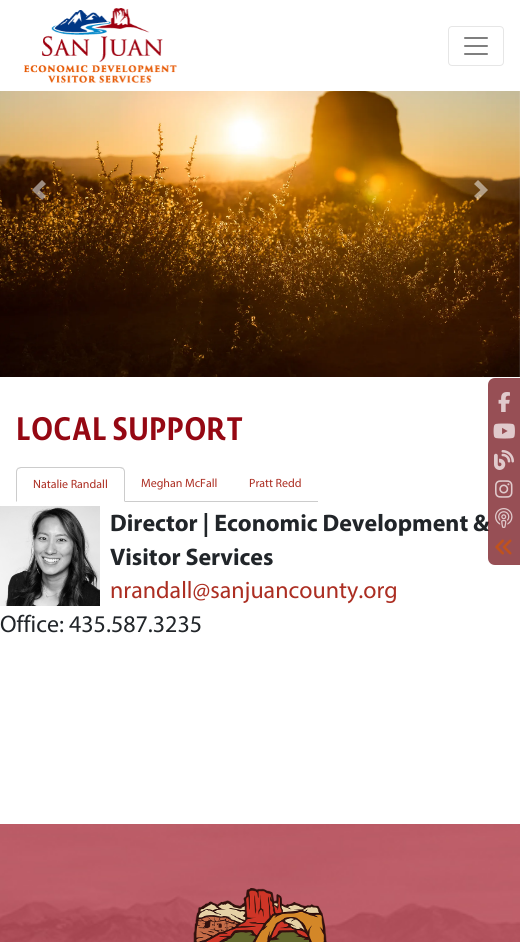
import math
import cairo



def rounded_rect(context, x, y, w, h, r):
    context.new_sub_path()
    for i, (u, v) in enumerate([(x + w - r, y + h - r), (x + r, y + h - r), (x + r, y + r), (x + w - r, y + r)]):
        context.arc(u, v, r, i * math.pi / 2, (i + 1) * math.pi / 2)
    context.close_path()


def draw_image(context, path, x, y, w, h):
    context.save()
    context.set_source_surface(cairo.ImageSurface.create_from_png(path), x, y)
    context.rectangle(x, y, w, h)
    context.fill()
    context.restore()


def draw(context):
    context.set_source_rgb(1, 1, 1)
    context.paint()
    draw_image(context, "images/1.png", 24, 8, 153, 75)
    rounded_rect(context, 448.5, 26.5, 55, 39, 3.5)
    context.set_source_rgb(230 / 255, 230 / 255, 230 / 255)
    context.set_line_width(1)
    context.stroke()
    draw_image(context, "images/2.png", 464, 37, 24, 18)
    draw_image(context, "images/3.png", 0, 91, 520, 286)
    context.set_source_rgba(1, 1, 1, 0.5)
    context.new_path()
    context.move_to(42, 180)
    context.line_to(32, 190)
    context.line_to(42, 200)
    context.line_to(46, 196)
    context.line_to(39.5, 190)
    context.line_to(46, 184)
    context.close_path()
    context.fill()
    context.new_path()
    context.move_to(478, 180)
    context.line_to(474, 184)
    context.line_to(480.5, 190)
    context.line_to(474, 196)
    context.line_to(478, 200)
    context.line_to(488, 190)
    context.close_path()
    context.fill()
    context.set_source_rgb(204 / 255, 204 / 255, 204 / 255)
    context.new_path()
    context.move_to(21, 467)
    context.curve_to(20, 467, 18, 468, 17, 468)
    context.line_to(18, 469)
    context.line_to(21, 468)
    context.line_to(120, 468)
    context.line_to(123, 469)
    context.line_to(124, 468)
    context.curve_to(123, 468, 122, 467, 120, 467)
    context.close_path()
    context.fill()
    context.new_path()
    context.move_to(125, 502)
    context.line_to(125, 472)
    context.curve_to(125, 470.5, 124.5, 469, 123.5, 468.5)
    context.line_to(123, 469)
    context.curve_to(123.5, 470, 124, 471, 124, 472)
    context.line_to(124, 501)
    context.close_path()
    context.fill()
    context.new_path()
    context.move_to(16, 502)
    context.line_to(17, 501)
    context.line_to(17, 472)
    context.curve_to(17, 471, 17.5, 470, 18, 469)
    context.line_to(17.5, 468.5)
    context.curve_to(16.5, 469, 16, 470.5, 16, 472)
    context.close_path()
    context.fill()
    context.rectangle(125, 501, 193, 1)
    context.fill()
    draw_image(context, "images/10.png", 0, 506, 100, 100)
    draw_image(context, "images/11.png", 0, 824, 520, 118)
    draw_image(context, "images/12.png", 193, 888, 134, 54)
    context.select_font_face("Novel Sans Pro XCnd", cairo.FontSlant.NORMAL, cairo.FontWeight.BOLD)
    context.set_font_size(32)
    context.set_source_rgb(149 / 255, 8 / 255, 19 / 255)
    context.move_to(16, 440)
    context.show_text("LOCAL SUPPORT")
    context.select_font_face("Myriad")
    context.set_font_size(12)
    context.set_source_rgb(172 / 255, 46 / 255, 34 / 255)
    context.move_to(33, 488)
    context.show_text("Natalie Randall")
    context.move_to(141, 487)
    context.show_text("Meghan McFall")
    context.move_to(249, 487)
    context.show_text("Pratt Redd")
    context.select_font_face("Myriad", cairo.FontSlant.NORMAL, cairo.FontWeight.BOLD)
    context.set_font_size(24)
    context.set_source_rgb(33 / 255, 37 / 255, 41 / 255)
    context.move_to(110, 531)
    context.show_text("Director | Economic Development &")
    context.set_source_rgba(107 / 255, 5 / 255, 13 / 255, 0.7)
    context.new_path()
    context.move_to(495, 378)
    context.line_to(520, 378)
    context.line_to(520, 565)
    context.line_to(495, 565)
    context.curve_to(491, 565, 488, 562, 488, 558)
    context.line_to(488, 385)
    context.curve_to(488, 381, 491, 378, 495, 378)
    context.close_path()
    context.fill()
    draw_image(context, "images/9.png", 495, 539, 17, 16)
    draw_image(context, "images/8.png", 495, 508, 18, 20)
    draw_image(context, "images/7.png", 495, 480, 18, 18)
    draw_image(context, "images/6.png", 494, 450, 20, 20)
    draw_image(context, "images/5.png", 493, 423, 22, 16)
    draw_image(context, "images/4.png", 498, 392, 12, 20)
    context.set_source_rgb(33 / 255, 37 / 255, 41 / 255)
    context.move_to(110, 565)
    context.show_text("Visitor Services")
    context.select_font_face("Myriad")
    context.set_source_rgb(172 / 255, 46 / 255, 34 / 255)
    context.move_to(110, 598)
    context.show_text("nrandall@sanjuancounty.org")
    context.set_source_rgb(33 / 255, 37 / 255, 41 / 255)
    context.move_to(0, 632)
    context.show_text("Office: 435.587.3235")


surface = cairo.ImageSurface(cairo.Format.RGB24, 520, 942)
context = cairo.Context(surface)
options = cairo.FontOptions()
options.set_hint_metrics(cairo.HintMetrics.OFF)
options.set_hint_style(cairo.HintStyle.NONE)
context.set_font_options(options)
context.set_miter_limit(4)
draw(context)
surface.write_to_png("out.png")
